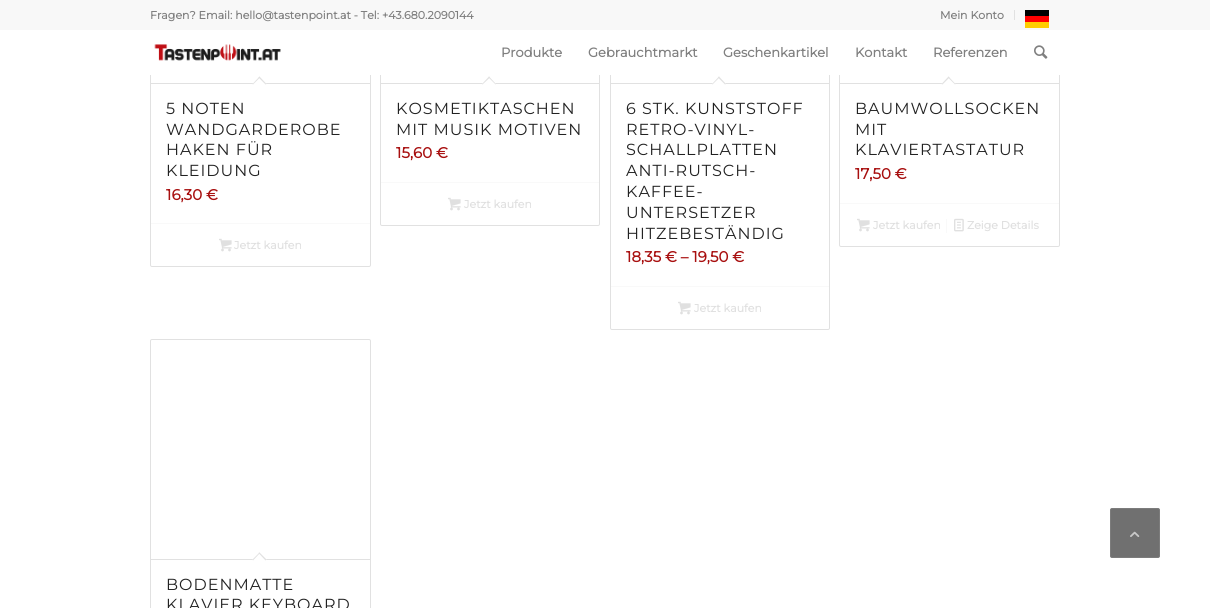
import math
import cairo



def draw_spaced(context, x, y, s, letter, word):
    context.move_to(x, y)
    for ch in s:
        context.show_text(ch)
        context.rel_move_to(letter + word * (ch == ' '), 0)


def rounded_rect(context, x, y, w, h, r):
    context.new_sub_path()
    for i, (u, v) in enumerate([(x + w - r, y + h - r), (x + r, y + h - r), (x + r, y + r), (x + w - r, y + r)]):
        context.arc(u, v, r, i * math.pi / 2, (i + 1) * math.pi / 2)
    context.close_path()


def draw_image(context, path, x, y, w, h):
    context.save()
    context.set_source_surface(cairo.ImageSurface.create_from_png(path), x, y)
    context.rectangle(x, y, w, h)
    context.fill()
    context.restore()


def draw(context):
    context.set_source_rgb(1, 1, 1)
    context.paint()
    rounded_rect(context, 150.5, -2.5, 220, 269, 1.5)
    context.set_source_rgb(225 / 255, 225 / 255, 225 / 255)
    context.set_line_width(1)
    context.stroke()
    rounded_rect(context, 380.5, -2.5, 219, 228, 1.5)
    context.stroke()
    rounded_rect(context, 610.5, -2.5, 219, 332, 1.5)
    context.stroke()
    rounded_rect(context, 839.5, -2.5, 220, 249, 1.5)
    context.stroke()
    context.set_source_rgb(248 / 255, 248 / 255, 248 / 255)
    context.rectangle(0, 0, 1210, 30)
    context.fill()
    context.set_source_rgb(225 / 255, 225 / 255, 225 / 255)
    context.rectangle(1014, 10, 1, 10)
    context.fill()
    context.set_source_rgb(1, 204 / 255, 0)
    context.rectangle(1025, 22, 24, 6)
    context.fill()
    context.set_source_rgb(0, 0, 0)
    context.rectangle(1025, 10, 24, 6)
    context.fill()
    context.set_source_rgb(1, 0, 0)
    context.rectangle(1025, 16, 24, 6)
    context.fill()
    context.set_source_rgb(1, 1, 1)
    context.rectangle(150, 30, 910, 45)
    context.fill()
    draw_image(context, "images/1.png", 154, 44, 127, 17)
    draw_image(context, "images/2.png", 1034, 45, 14, 14)
    context.set_source_rgb(225 / 255, 225 / 255, 225 / 255)
    context.rectangle(151, 83, 219, 1)
    context.fill()
    context.set_source_rgb(1, 1, 1)
    context.new_path()
    context.move_to(259.5, 76.5)
    context.line_to(266.5, 84)
    context.line_to(259.5, 91)
    context.line_to(252.5, 84)
    context.close_path()
    context.fill()
    context.set_source_rgb(225 / 255, 225 / 255, 225 / 255)
    context.new_path()
    context.move_to(259.5, 76.5)
    context.line_to(266.5, 84)
    context.line_to(265.5, 84.5)
    context.line_to(258.5, 77.5)
    context.close_path()
    context.fill()
    context.new_path()
    context.move_to(259.5, 76.5)
    context.line_to(260, 77.5)
    context.line_to(253, 84.5)
    context.line_to(252.5, 84)
    context.close_path()
    context.fill()
    context.set_source_rgb(249 / 255, 249 / 255, 249 / 255)
    context.rectangle(151, 223, 219, 1)
    context.fill()
    draw_image(context, "images/3.png", 219, 238, 13, 14)
    context.set_source_rgb(225 / 255, 225 / 255, 225 / 255)
    context.rectangle(381, 83, 218, 1)
    context.fill()
    context.set_source_rgb(1, 1, 1)
    context.new_path()
    context.move_to(489, 76.5)
    context.line_to(496, 84)
    context.line_to(489, 91)
    context.line_to(482, 84)
    context.close_path()
    context.fill()
    context.set_source_rgb(225 / 255, 225 / 255, 225 / 255)
    context.new_path()
    context.move_to(489, 76.5)
    context.line_to(496, 84)
    context.line_to(495.5, 84.5)
    context.line_to(488.5, 77.5)
    context.close_path()
    context.fill()
    context.new_path()
    context.move_to(489, 76.5)
    context.line_to(490, 77.5)
    context.line_to(482.5, 84.5)
    context.line_to(482, 84)
    context.close_path()
    context.fill()
    context.set_source_rgb(249 / 255, 249 / 255, 249 / 255)
    context.rectangle(381, 182, 218, 1)
    context.fill()
    draw_image(context, "images/3.png", 448, 197, 13, 14)
    context.set_source_rgb(225 / 255, 225 / 255, 225 / 255)
    context.rectangle(611, 83, 218, 1)
    context.fill()
    context.set_source_rgb(1, 1, 1)
    context.new_path()
    context.move_to(719, 76.5)
    context.line_to(726, 84)
    context.line_to(719, 91)
    context.line_to(712, 84)
    context.close_path()
    context.fill()
    context.set_source_rgb(225 / 255, 225 / 255, 225 / 255)
    context.new_path()
    context.move_to(719, 76.5)
    context.line_to(726, 84)
    context.line_to(725, 84.5)
    context.line_to(718, 77.5)
    context.close_path()
    context.fill()
    context.new_path()
    context.move_to(719, 76.5)
    context.line_to(719.5, 77.5)
    context.line_to(712.5, 84.5)
    context.line_to(712, 84)
    context.close_path()
    context.fill()
    context.set_source_rgb(249 / 255, 249 / 255, 249 / 255)
    context.rectangle(611, 286, 218, 1)
    context.fill()
    draw_image(context, "images/3.png", 678, 301, 13, 14)
    context.set_source_rgb(225 / 255, 225 / 255, 225 / 255)
    context.rectangle(840, 83, 219, 1)
    context.fill()
    context.set_source_rgb(1, 1, 1)
    context.new_path()
    context.move_to(948.5, 76.5)
    context.line_to(955.5, 84)
    context.line_to(948.5, 91)
    context.line_to(941.5, 84)
    context.close_path()
    context.fill()
    context.set_source_rgb(225 / 255, 225 / 255, 225 / 255)
    context.new_path()
    context.move_to(948.5, 76.5)
    context.line_to(955.5, 84)
    context.line_to(955, 84.5)
    context.line_to(948, 77.5)
    context.close_path()
    context.fill()
    context.new_path()
    context.move_to(948.5, 76.5)
    context.line_to(949.5, 77.5)
    context.line_to(942.5, 84.5)
    context.line_to(941.5, 84)
    context.close_path()
    context.fill()
    context.set_source_rgb(249 / 255, 249 / 255, 249 / 255)
    context.rectangle(840, 203, 219, 1)
    context.fill()
    draw_image(context, "images/3.png", 857, 218, 13, 14)
    context.rectangle(946, 219, 1, 14)
    context.fill()
    draw_image(context, "images/4.png", 954, 218, 10, 14)
    rounded_rect(context, 150.5, 339.5, 220, 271, 1.5)
    context.set_source_rgb(225 / 255, 225 / 255, 225 / 255)
    context.stroke()
    context.rectangle(151, 559, 219, 1)
    context.fill()
    context.set_source_rgb(1, 1, 1)
    context.new_path()
    context.move_to(259.5, 552.5)
    context.line_to(266.5, 559.5)
    context.line_to(259.5, 566.5)
    context.line_to(252.5, 559.5)
    context.close_path()
    context.fill()
    context.set_source_rgb(225 / 255, 225 / 255, 225 / 255)
    context.new_path()
    context.move_to(259.5, 552.5)
    context.line_to(266.5, 559.5)
    context.line_to(265.5, 560.5)
    context.line_to(258.5, 553)
    context.close_path()
    context.fill()
    context.new_path()
    context.move_to(259.5, 552.5)
    context.line_to(260, 553)
    context.line_to(253, 560.5)
    context.line_to(252.5, 559.5)
    context.close_path()
    context.fill()
    context.set_source_rgb(112 / 255, 112 / 255, 112 / 255)
    rounded_rect(context, 1110.5, 508.5, 49, 49, 1.5)
    context.fill_preserve()
    context.set_source_rgb(124 / 255, 124 / 255, 124 / 255)
    context.stroke()
    draw_image(context, "images/5.png", 1130, 531, 10, 6)
    context.select_font_face("Montserrat", cairo.FontSlant.NORMAL, cairo.FontWeight.BOLD)
    context.set_font_size(11)
    context.set_source_rgb(128 / 255, 128 / 255, 128 / 255)
    context.move_to(150, 19)
    context.show_text("Fragen? Email: hello@tastenpoint.at - Tel: +43.680.2090144")
    context.move_to(940, 19)
    context.show_text("Mein Konto")
    context.set_font_size(13)
    context.move_to(501, 57)
    context.show_text("Produkte")
    context.move_to(588, 57)
    context.show_text("Gebrauchtmarkt")
    context.move_to(723, 57)
    context.show_text("Geschenkartikel")
    context.move_to(855, 57)
    context.show_text("Kontakt")
    context.move_to(933, 57)
    context.show_text("Referenzen")
    context.select_font_face("Montserrat Thin")
    context.set_font_size(16)
    context.set_source_rgb(34 / 255, 34 / 255, 34 / 255)
    draw_spaced(context, 166, 114, "5 NOTEN", 1, 0)
    draw_spaced(context, 166, 135, "WANDGARDEROBE", 1, 0)
    draw_spaced(context, 166, 155, "HAKEN FÜR", 1, 0)
    draw_spaced(context, 166, 176, "KLEIDUNG", 1, 0)
    context.select_font_face("Montserrat", cairo.FontSlant.NORMAL, cairo.FontWeight.BOLD)
    context.set_font_size(15)
    context.set_source_rgb(168 / 255, 16 / 255, 16 / 255)
    context.move_to(166, 200)
    context.show_text("16,30 €")
    context.set_font_size(11)
    context.set_source_rgb(224 / 255, 224 / 255, 224 / 255)
    context.move_to(234, 249)
    context.show_text("Jetzt kaufen")
    context.select_font_face("Montserrat Thin")
    context.set_font_size(16)
    context.set_source_rgb(34 / 255, 34 / 255, 34 / 255)
    draw_spaced(context, 396, 114, "KOSMETIKTASCHEN", 1, 0)
    draw_spaced(context, 396, 135, "MIT MUSIK MOTIVEN", 1, 0)
    context.select_font_face("Montserrat", cairo.FontSlant.NORMAL, cairo.FontWeight.BOLD)
    context.set_font_size(15)
    context.set_source_rgb(168 / 255, 16 / 255, 16 / 255)
    context.move_to(396, 158)
    context.show_text("15,60 €")
    context.set_font_size(11)
    context.set_source_rgb(224 / 255, 224 / 255, 224 / 255)
    context.move_to(464, 208)
    context.show_text("Jetzt kaufen")
    context.select_font_face("Montserrat Thin")
    context.set_font_size(16)
    context.set_source_rgb(34 / 255, 34 / 255, 34 / 255)
    draw_spaced(context, 626, 114, "6 STK. KUNSTSTOFF", 1, 0)
    draw_spaced(context, 626, 135, "RETRO-VINYL-", 1, 0)
    draw_spaced(context, 626, 155, "SCHALLPLATTEN", 1, 0)
    draw_spaced(context, 626, 176, "ANTI-RUTSCH-", 1, 0)
    draw_spaced(context, 626, 197, "KAFFEE-", 1, 0)
    draw_spaced(context, 626, 218, "UNTERSETZER", 1, 0)
    draw_spaced(context, 626, 239, "HITZEBESTÄNDIG", 1, 0)
    context.select_font_face("Montserrat", cairo.FontSlant.NORMAL, cairo.FontWeight.BOLD)
    context.set_font_size(15)
    context.set_source_rgb(168 / 255, 16 / 255, 16 / 255)
    context.move_to(626, 262)
    context.show_text("18,35 € – 19,50 €")
    context.set_font_size(11)
    context.set_source_rgb(224 / 255, 224 / 255, 224 / 255)
    context.move_to(694, 312)
    context.show_text("Jetzt kaufen")
    context.select_font_face("Montserrat Thin")
    context.set_font_size(16)
    context.set_source_rgb(34 / 255, 34 / 255, 34 / 255)
    draw_spaced(context, 855, 114, "BAUMWOLLSOCKEN", 1, 0)
    draw_spaced(context, 855, 135, "MIT", 1, 0)
    draw_spaced(context, 855, 155, "KLAVIERTASTATUR", 1, 0)
    context.select_font_face("Montserrat", cairo.FontSlant.NORMAL, cairo.FontWeight.BOLD)
    context.set_font_size(15)
    context.set_source_rgb(168 / 255, 16 / 255, 16 / 255)
    context.move_to(855, 179)
    context.show_text("17,50 €")
    context.set_font_size(11)
    context.set_source_rgb(224 / 255, 224 / 255, 224 / 255)
    context.move_to(873, 229)
    context.show_text("Jetzt kaufen")
    context.move_to(967, 229)
    context.show_text("Zeige Details")
    context.select_font_face("Montserrat Thin")
    context.set_font_size(16)
    context.set_source_rgb(34 / 255, 34 / 255, 34 / 255)
    draw_spaced(context, 166, 590, "BODENMATTE", 1, 0)
    draw_spaced(context, 166, 610, "KLAVIER KEYBOARD", 1, 0)


surface = cairo.ImageSurface(cairo.Format.RGB24, 1210, 608)
context = cairo.Context(surface)
options = cairo.FontOptions()
options.set_hint_metrics(cairo.HintMetrics.OFF)
options.set_hint_style(cairo.HintStyle.NONE)
context.set_font_options(options)
context.set_miter_limit(4)
draw(context)
surface.write_to_png("out.png")
